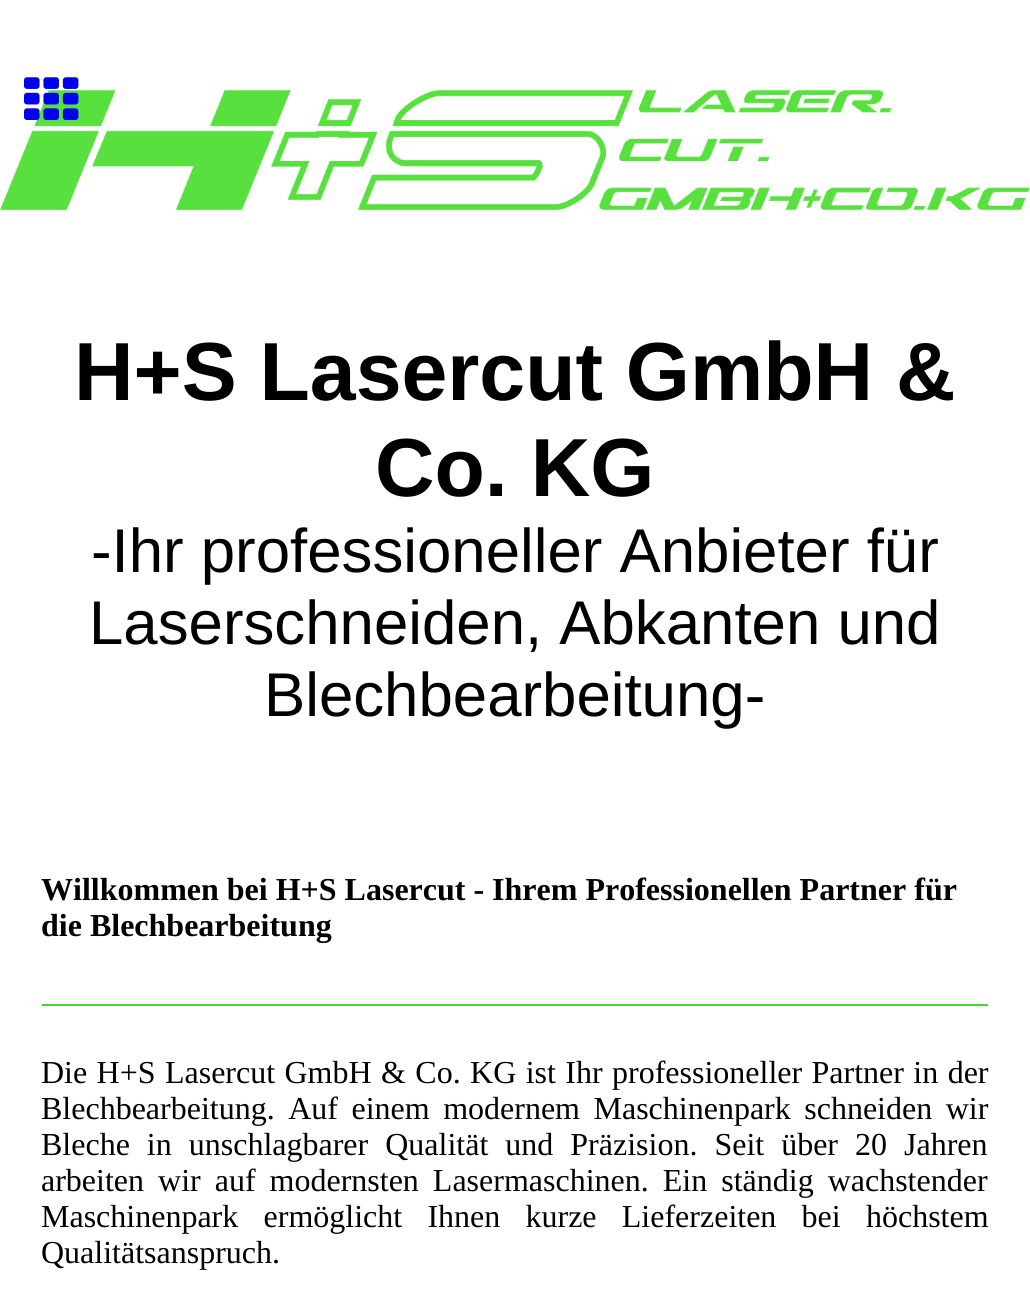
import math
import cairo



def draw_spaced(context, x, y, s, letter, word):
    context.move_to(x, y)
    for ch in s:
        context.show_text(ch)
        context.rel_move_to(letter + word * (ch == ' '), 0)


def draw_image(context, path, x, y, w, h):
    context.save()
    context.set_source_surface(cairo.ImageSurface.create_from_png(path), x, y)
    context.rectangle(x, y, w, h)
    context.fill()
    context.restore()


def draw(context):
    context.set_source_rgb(1, 1, 1)
    context.paint()
    draw_image(context, "images/2.png", 0, 90, 1030, 120)
    draw_image(context, "images/1.png", 24, 77, 55, 43)
    context.set_source_rgb(68 / 255, 214 / 255, 44 / 255)
    context.rectangle(42, 1004, 946, 2)
    context.fill()
    context.select_font_face("Liberation Sans", cairo.FontSlant.NORMAL, cairo.FontWeight.BOLD)
    context.set_font_size(82.4)
    context.set_source_rgb(0, 0, 0)
    context.move_to(74, 400)
    context.show_text("H+S Lasercut GmbH &")
    context.move_to(375, 496)
    context.show_text("Co. KG")
    context.select_font_face("Liberation Sans")
    context.set_font_size(61.75)
    context.move_to(91, 572)
    context.show_text("-Ihr professioneller Anbieter für")
    context.move_to(89, 644)
    context.show_text("Laserschneiden, Abkanten und")
    context.move_to(264, 716)
    context.show_text("Blechbearbeitung-")
    context.select_font_face("Liberation Serif", cairo.FontSlant.NORMAL, cairo.FontWeight.BOLD)
    context.set_font_size(32)
    context.move_to(41, 900)
    context.show_text("Willkommen bei H+S Lasercut - Ihrem Professionellen Partner für")
    context.move_to(41, 936)
    context.show_text("die Blechbearbeitung")
    context.select_font_face("Liberation Serif")
    draw_spaced(context, 41, 1083, "Die H+S Lasercut GmbH & Co. KG ist Ihr professioneller Partner in der", 0, 1.4)
    draw_spaced(context, 41, 1119, "Blechbearbeitung. Auf einem modernem Maschinenpark schneiden wir", 0, 5.5)
    draw_spaced(context, 41, 1155, "Bleche in unschlagbarer Qualität und Präzision. Seit über 20 Jahren", 0, 9)
    draw_spaced(context, 41, 1191, "arbeiten wir auf modernsten Lasermaschinen. Ein ständig wachstender", 0, 6)
    draw_spaced(context, 41, 1227, "Maschinenpark ermöglicht Ihnen kurze Lieferzeiten bei höchstem", 0, 17.25)
    context.move_to(41, 1263)
    context.show_text("Qualitätsanspruch.")


surface = cairo.ImageSurface(cairo.Format.RGB24, 1030, 1299)
context = cairo.Context(surface)
options = cairo.FontOptions()
options.set_hint_metrics(cairo.HintMetrics.OFF)
options.set_hint_style(cairo.HintStyle.NONE)
context.set_font_options(options)
context.set_miter_limit(4)
draw(context)
surface.write_to_png("out.png")
